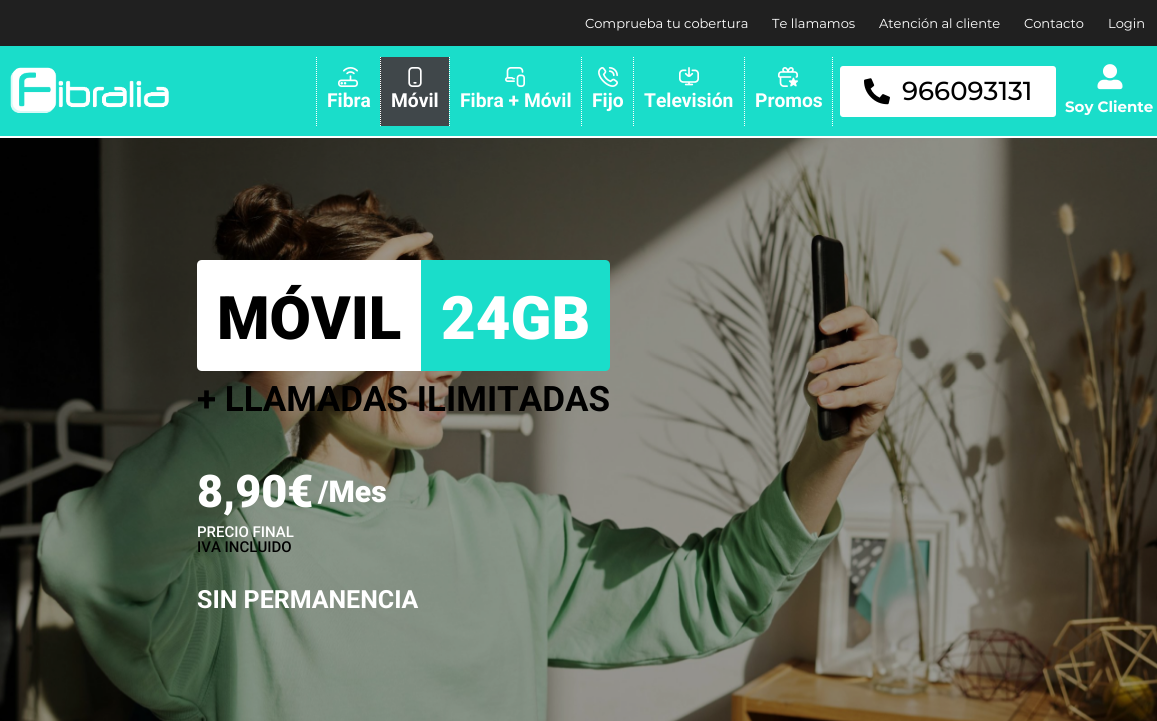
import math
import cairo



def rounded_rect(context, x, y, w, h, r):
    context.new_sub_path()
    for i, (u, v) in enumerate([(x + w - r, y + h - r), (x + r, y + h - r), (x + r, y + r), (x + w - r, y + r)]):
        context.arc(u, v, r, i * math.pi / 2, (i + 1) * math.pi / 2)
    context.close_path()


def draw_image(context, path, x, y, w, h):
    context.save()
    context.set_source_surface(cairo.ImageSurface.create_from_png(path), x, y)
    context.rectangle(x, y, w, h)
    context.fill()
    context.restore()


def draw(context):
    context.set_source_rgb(1, 1, 1)
    context.paint()
    context.set_source_rgb(32 / 255, 32 / 255, 32 / 255)
    context.rectangle(0, 0, 1157, 46)
    context.fill()
    context.set_source_rgb(26 / 255, 221 / 255, 202 / 255)
    context.rectangle(0, 46, 1157, 90)
    context.fill()
    draw_image(context, "images/1.png", 10, 67, 159, 46)
    context.new_path()
    context.move_to(832.5, 57)
    context.line_to(832.5, 126)
    context.set_source_rgb(1, 1, 1)
    context.set_line_width(1)
    context.set_dash([1, 1])
    context.stroke()
    context.new_path()
    context.move_to(316.5, 57)
    context.line_to(316.5, 126)
    context.stroke()
    draw_image(context, "images/2.png", 338, 67, 20, 20)
    context.set_source_rgb(64 / 255, 71 / 255, 74 / 255)
    context.rectangle(380, 57, 69, 69)
    context.fill()
    context.new_path()
    context.move_to(380.5, 57)
    context.line_to(380.5, 126)
    context.set_source_rgb(1, 1, 1)
    context.stroke()
    draw_image(context, "images/3.png", 408, 67, 14, 20)
    context.new_path()
    context.move_to(449.5, 57)
    context.line_to(449.5, 126)
    context.stroke()
    draw_image(context, "images/4.png", 505, 67, 20, 20)
    context.new_path()
    context.move_to(581.5, 57)
    context.line_to(581.5, 126)
    context.stroke()
    draw_image(context, "images/5.png", 598, 67, 20, 20)
    context.new_path()
    context.move_to(633.5, 57)
    context.line_to(633.5, 126)
    context.stroke()
    draw_image(context, "images/6.png", 679, 67, 20, 19)
    context.new_path()
    context.move_to(744.5, 57)
    context.line_to(744.5, 126)
    context.stroke()
    draw_image(context, "images/7.png", 778, 67, 20, 20)
    rounded_rect(context, 840, 66, 216, 51, 3)
    context.fill()
    draw_image(context, "images/8.png", 864, 78, 26, 27)
    draw_image(context, "images/9.png", 1097, 64, 26, 26)
    draw_image(context, "images/10.png", 0, 138, 1157, 583)
    context.new_path()
    context.move_to(202, 260)
    context.line_to(421, 260)
    context.line_to(421, 371)
    context.line_to(202, 371)
    context.curve_to(199, 371, 197, 369, 197, 366)
    context.line_to(197, 265)
    context.curve_to(197, 262, 199, 260, 202, 260)
    context.close_path()
    context.fill()
    context.set_source_rgb(26 / 255, 221 / 255, 202 / 255)
    context.new_path()
    context.move_to(421, 260)
    context.line_to(605, 260)
    context.curve_to(608, 260, 610, 262, 610, 265)
    context.line_to(610, 366)
    context.curve_to(610, 369, 608, 371, 605, 371)
    context.line_to(421, 371)
    context.close_path()
    context.fill()
    context.select_font_face("Montserrat")
    context.set_font_size(13)
    context.set_source_rgb(1, 1, 1)
    context.move_to(585, 28)
    context.show_text("Comprueba tu cobertura")
    context.move_to(772, 28)
    context.show_text("Te llamamos")
    context.move_to(879, 28)
    context.show_text("Atención al cliente")
    context.move_to(1024, 28)
    context.show_text("Contacto")
    context.move_to(1108, 28)
    context.show_text("Login")
    context.select_font_face("Roboto", cairo.FontSlant.NORMAL, cairo.FontWeight.BOLD)
    context.set_font_size(19.25)
    context.move_to(327, 107)
    context.show_text("Fibra")
    context.move_to(391, 107)
    context.show_text("Móvil")
    context.move_to(460, 107)
    context.show_text("Fibra + Móvil")
    context.move_to(592, 107)
    context.show_text("Fijo")
    context.move_to(644, 107)
    context.show_text("Televisión")
    context.move_to(755, 107)
    context.show_text("Promos")
    context.select_font_face("Montserrat Medium")
    context.set_font_size(26)
    context.set_source_rgb(0, 0, 0)
    context.move_to(902, 100)
    context.show_text("966093131")
    context.select_font_face("Montserrat", cairo.FontSlant.NORMAL, cairo.FontWeight.BOLD)
    context.set_font_size(15)
    context.set_source_rgb(1, 1, 1)
    context.move_to(1065, 112)
    context.show_text("Soy Cliente")
    context.select_font_face("Roboto Black")
    context.set_font_size(60)
    context.set_source_rgb(0, 0, 0)
    context.move_to(217, 339)
    context.show_text("MÓVIL")
    context.set_source_rgb(1, 1, 1)
    context.move_to(441, 339)
    context.show_text("24GB")
    context.select_font_face("Roboto", cairo.FontSlant.NORMAL, cairo.FontWeight.BOLD)
    context.set_font_size(35)
    context.set_source_rgb(0, 0, 0)
    context.move_to(197, 411)
    context.show_text("+ LLAMADAS ILIMITADAS")
    context.select_font_face("Roboto Black")
    context.set_font_size(45)
    context.set_source_rgb(1, 1, 1)
    context.move_to(197, 507)
    context.show_text("8,90€")
    context.set_font_size(30)
    context.move_to(318, 502)
    context.show_text("/Mes")
    context.select_font_face("Roboto Medium")
    context.set_font_size(15)
    context.move_to(197, 537)
    context.show_text("PRECIO FINAL")
    context.set_source_rgb(0, 0, 0)
    context.move_to(197, 552)
    context.show_text("IVA INCLUIDO")
    context.select_font_face("Roboto", cairo.FontSlant.NORMAL, cairo.FontWeight.BOLD)
    context.set_font_size(25)
    context.set_source_rgb(1, 1, 1)
    context.move_to(197, 608)
    context.show_text("SIN PERMANENCIA")


surface = cairo.ImageSurface(cairo.Format.RGB24, 1157, 721)
context = cairo.Context(surface)
options = cairo.FontOptions()
options.set_hint_metrics(cairo.HintMetrics.OFF)
options.set_hint_style(cairo.HintStyle.NONE)
context.set_font_options(options)
context.set_miter_limit(4)
draw(context)
surface.write_to_png("out.png")
